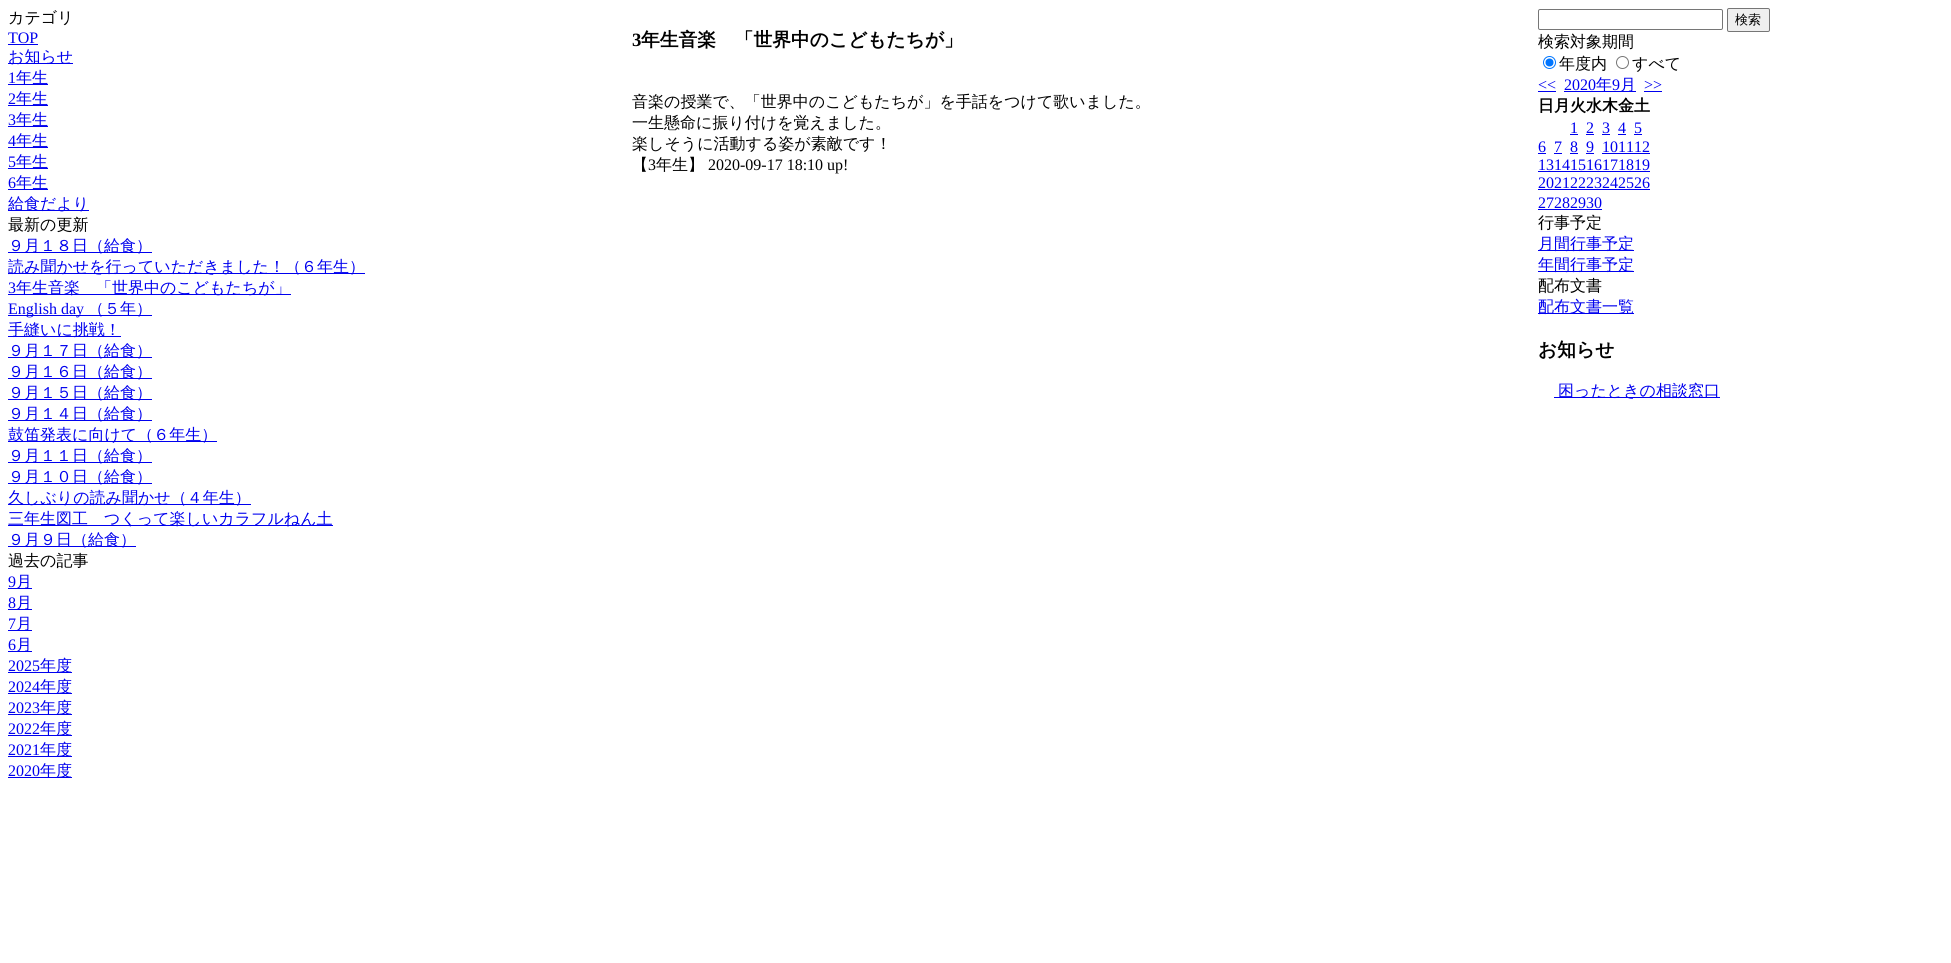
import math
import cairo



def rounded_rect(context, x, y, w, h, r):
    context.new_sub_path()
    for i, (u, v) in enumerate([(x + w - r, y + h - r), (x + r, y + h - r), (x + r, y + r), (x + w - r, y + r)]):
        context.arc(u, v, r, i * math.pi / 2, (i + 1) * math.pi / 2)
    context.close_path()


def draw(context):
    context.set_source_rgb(1, 1, 1)
    context.paint()
    context.set_source_rgb(0, 0, 238 / 255)
    context.rectangle(8, 44, 30, 1)
    context.fill()
    context.rectangle(8, 63, 65, 1)
    context.fill()
    context.rectangle(8, 84, 40, 1)
    context.fill()
    context.rectangle(8, 105, 40, 1)
    context.fill()
    context.rectangle(8, 126, 40, 1)
    context.fill()
    context.rectangle(8, 147, 40, 1)
    context.fill()
    context.rectangle(8, 168, 40, 1)
    context.fill()
    context.rectangle(8, 189, 40, 1)
    context.fill()
    context.rectangle(8, 210, 81, 1)
    context.fill()
    context.rectangle(8, 252, 144, 1)
    context.fill()
    context.rectangle(8, 273, 357, 1)
    context.fill()
    context.rectangle(8, 294, 283, 1)
    context.fill()
    context.rectangle(8, 315, 144, 1)
    context.fill()
    context.rectangle(8, 336, 113, 1)
    context.fill()
    context.rectangle(8, 357, 144, 1)
    context.fill()
    context.rectangle(8, 378, 144, 1)
    context.fill()
    context.rectangle(8, 399, 144, 1)
    context.fill()
    context.rectangle(8, 420, 144, 1)
    context.fill()
    context.rectangle(8, 441, 209, 1)
    context.fill()
    context.rectangle(8, 462, 144, 1)
    context.fill()
    context.rectangle(8, 483, 144, 1)
    context.fill()
    context.rectangle(8, 504, 243, 1)
    context.fill()
    context.rectangle(8, 525, 325, 1)
    context.fill()
    context.rectangle(8, 546, 128, 1)
    context.fill()
    context.rectangle(8, 588, 24, 1)
    context.fill()
    context.rectangle(8, 609, 24, 1)
    context.fill()
    context.rectangle(8, 630, 24, 1)
    context.fill()
    context.rectangle(8, 651, 24, 1)
    context.fill()
    context.rectangle(8, 672, 64, 1)
    context.fill()
    context.rectangle(8, 693, 64, 1)
    context.fill()
    context.rectangle(8, 714, 64, 1)
    context.fill()
    context.rectangle(8, 735, 64, 1)
    context.fill()
    context.rectangle(8, 756, 64, 1)
    context.fill()
    context.rectangle(8, 777, 64, 1)
    context.fill()
    rounded_rect(context, 1538.5, 9.5, 184, 20, 1.5)
    context.set_source_rgb(118 / 255, 118 / 255, 118 / 255)
    context.set_line_width(1)
    context.stroke()
    context.set_source_rgb(239 / 255, 239 / 255, 239 / 255)
    rounded_rect(context, 1727.5, 8.5, 42, 23, 1.5)
    context.fill_preserve()
    context.set_source_rgb(118 / 255, 118 / 255, 118 / 255)
    context.stroke()
    context.arc(1549.5, 62.5, 6, 0, 2 * math.pi)
    context.set_source_rgb(0, 117 / 255, 1)
    context.stroke()
    context.arc(1549.5, 62.5, 4, 0, 2 * math.pi)
    context.fill()
    context.arc(1622.5, 62.5, 6, 0, 2 * math.pi)
    context.set_source_rgb(118 / 255, 118 / 255, 118 / 255)
    context.stroke()
    context.set_source_rgb(0, 0, 238 / 255)
    context.rectangle(1538, 91, 18, 1)
    context.fill()
    context.rectangle(1564, 91, 72, 1)
    context.fill()
    context.rectangle(1644, 91, 18, 1)
    context.fill()
    context.rectangle(1570, 134, 8, 1)
    context.fill()
    context.rectangle(1586, 134, 8, 1)
    context.fill()
    context.rectangle(1602, 134, 8, 1)
    context.fill()
    context.rectangle(1618, 134, 8, 1)
    context.fill()
    context.rectangle(1634, 134, 8, 1)
    context.fill()
    context.rectangle(1538, 153, 8, 1)
    context.fill()
    context.rectangle(1554, 153, 8, 1)
    context.fill()
    context.rectangle(1570, 153, 8, 1)
    context.fill()
    context.rectangle(1586, 153, 8, 1)
    context.fill()
    context.rectangle(1602, 153, 48, 1)
    context.fill()
    context.rectangle(1538, 171, 112, 1)
    context.fill()
    context.rectangle(1538, 189, 112, 1)
    context.fill()
    context.rectangle(1538, 209, 64, 1)
    context.fill()
    context.rectangle(1538, 250, 96, 1)
    context.fill()
    context.rectangle(1538, 271, 96, 1)
    context.fill()
    context.rectangle(1538, 313, 96, 1)
    context.fill()
    context.rectangle(1554, 397, 166, 1)
    context.fill()
    context.select_font_face("WenQuanYi Zen Hei Medium")
    context.set_font_size(16)
    context.set_source_rgb(0, 0, 0)
    context.move_to(8, 23)
    context.show_text("カテゴリ")
    context.select_font_face("Liberation Serif")
    context.set_source_rgb(0, 0, 238 / 255)
    context.move_to(8, 43)
    context.show_text("TOP")
    context.select_font_face("WenQuanYi Zen Hei Medium")
    context.move_to(8, 62)
    context.show_text("お知らせ")
    context.select_font_face("Liberation Serif")
    context.move_to(8, 83)
    context.show_text("1")
    context.select_font_face("WenQuanYi Zen Hei Medium")
    context.move_to(16, 83)
    context.show_text("年生")
    context.select_font_face("Liberation Serif")
    context.move_to(8, 104)
    context.show_text("2")
    context.select_font_face("WenQuanYi Zen Hei Medium")
    context.move_to(16, 104)
    context.show_text("年生")
    context.select_font_face("Liberation Serif")
    context.move_to(8, 125)
    context.show_text("3")
    context.select_font_face("WenQuanYi Zen Hei Medium")
    context.move_to(16, 125)
    context.show_text("年生")
    context.select_font_face("Liberation Serif")
    context.move_to(8, 146)
    context.show_text("4")
    context.select_font_face("WenQuanYi Zen Hei Medium")
    context.move_to(16, 146)
    context.show_text("年生")
    context.select_font_face("Liberation Serif")
    context.move_to(8, 167)
    context.show_text("5")
    context.select_font_face("WenQuanYi Zen Hei Medium")
    context.move_to(16, 167)
    context.show_text("年生")
    context.select_font_face("Liberation Serif")
    context.move_to(8, 188)
    context.show_text("6")
    context.select_font_face("WenQuanYi Zen Hei Medium")
    context.move_to(16, 188)
    context.show_text("年生")
    context.move_to(8, 209)
    context.show_text("給食だより")
    context.set_source_rgb(0, 0, 0)
    context.move_to(8, 230)
    context.show_text("最新の更新")
    context.set_source_rgb(0, 0, 238 / 255)
    context.move_to(8, 251)
    context.show_text("９月１８日（給食）")
    context.move_to(8, 272)
    context.show_text("読み聞かせを行っていただきました！（６年生）")
    context.select_font_face("Liberation Serif")
    context.move_to(8, 293)
    context.show_text("3")
    context.select_font_face("WenQuanYi Zen Hei Medium")
    context.move_to(16, 293)
    context.show_text("年生音楽　「世界中のこどもたちが」")
    context.select_font_face("Liberation Serif")
    context.move_to(8, 314)
    context.show_text("English day")
    context.select_font_face("WenQuanYi Zen Hei Medium")
    context.move_to(88, 314)
    context.show_text("（５年）")
    context.move_to(8, 335)
    context.show_text("手縫いに挑戦！")
    context.move_to(8, 356)
    context.show_text("９月１７日（給食）")
    context.move_to(8, 377)
    context.show_text("９月１６日（給食）")
    context.move_to(8, 398)
    context.show_text("９月１５日（給食）")
    context.move_to(8, 419)
    context.show_text("９月１４日（給食）")
    context.move_to(8, 440)
    context.show_text("鼓笛発表に向けて（６年生）")
    context.move_to(8, 461)
    context.show_text("９月１１日（給食）")
    context.move_to(8, 482)
    context.show_text("９月１０日（給食）")
    context.move_to(8, 503)
    context.show_text("久しぶりの読み聞かせ（４年生）")
    context.move_to(8, 524)
    context.show_text("三年生図工　つくって楽しいカラフルねん土")
    context.move_to(8, 545)
    context.show_text("９月９日（給食）")
    context.set_source_rgb(0, 0, 0)
    context.move_to(8, 566)
    context.show_text("過去の記事")
    context.select_font_face("Liberation Serif")
    context.set_source_rgb(0, 0, 238 / 255)
    context.move_to(8, 587)
    context.show_text("9")
    context.select_font_face("WenQuanYi Zen Hei Medium")
    context.move_to(16, 587)
    context.show_text("月")
    context.select_font_face("Liberation Serif")
    context.move_to(8, 608)
    context.show_text("8")
    context.select_font_face("WenQuanYi Zen Hei Medium")
    context.move_to(16, 608)
    context.show_text("月")
    context.select_font_face("Liberation Serif")
    context.move_to(8, 629)
    context.show_text("7")
    context.select_font_face("WenQuanYi Zen Hei Medium")
    context.move_to(16, 629)
    context.show_text("月")
    context.select_font_face("Liberation Serif")
    context.move_to(8, 650)
    context.show_text("6")
    context.select_font_face("WenQuanYi Zen Hei Medium")
    context.move_to(16, 650)
    context.show_text("月")
    context.select_font_face("Liberation Serif")
    context.move_to(8, 671)
    context.show_text("2025")
    context.select_font_face("WenQuanYi Zen Hei Medium")
    context.move_to(40, 671)
    context.show_text("年度")
    context.select_font_face("Liberation Serif")
    context.move_to(8, 692)
    context.show_text("2024")
    context.select_font_face("WenQuanYi Zen Hei Medium")
    context.move_to(40, 692)
    context.show_text("年度")
    context.select_font_face("Liberation Serif")
    context.move_to(8, 713)
    context.show_text("2023")
    context.select_font_face("WenQuanYi Zen Hei Medium")
    context.move_to(40, 713)
    context.show_text("年度")
    context.select_font_face("Liberation Serif")
    context.move_to(8, 734)
    context.show_text("2022")
    context.select_font_face("WenQuanYi Zen Hei Medium")
    context.move_to(40, 734)
    context.show_text("年度")
    context.select_font_face("Liberation Serif")
    context.move_to(8, 755)
    context.show_text("2021")
    context.select_font_face("WenQuanYi Zen Hei Medium")
    context.move_to(40, 755)
    context.show_text("年度")
    context.select_font_face("Liberation Serif")
    context.move_to(8, 776)
    context.show_text("2020")
    context.select_font_face("WenQuanYi Zen Hei Medium")
    context.move_to(40, 776)
    context.show_text("年度")
    context.select_font_face("Liberation Serif", cairo.FontSlant.NORMAL, cairo.FontWeight.BOLD)
    context.set_font_size(18.75)
    context.set_source_rgb(0, 0, 0)
    context.move_to(632, 46)
    context.show_text("3")
    context.select_font_face("WenQuanYi Zen Hei", cairo.FontSlant.NORMAL, cairo.FontWeight.BOLD)
    context.move_to(641, 46)
    context.show_text("年生音楽　「世界中のこどもたちが」")
    context.select_font_face("WenQuanYi Zen Hei Medium")
    context.set_font_size(16)
    context.move_to(632, 107)
    context.show_text("音楽の授業で、「世界中のこどもたちが」を手話をつけて歌いました。")
    context.move_to(632, 128)
    context.show_text("一生懸命に振り付けを覚えました。")
    context.move_to(632, 149)
    context.show_text("楽しそうに活動する姿が素敵です！")
    context.move_to(632, 170)
    context.show_text("【")
    context.select_font_face("Liberation Serif")
    context.move_to(648, 170)
    context.show_text("3")
    context.select_font_face("WenQuanYi Zen Hei Medium")
    context.move_to(656, 170)
    context.show_text("年生】")
    context.select_font_face("Liberation Serif")
    context.move_to(708, 170)
    context.show_text("2020-09-17 18:10 up!")
    context.select_font_face("WenQuanYi Zen Hei Medium")
    context.set_font_size(13)
    context.move_to(1735, 24)
    context.show_text("検索")
    context.set_font_size(16)
    context.move_to(1538, 47)
    context.show_text("検索対象期間")
    context.move_to(1559, 69)
    context.show_text("年度内")
    context.move_to(1632, 69)
    context.show_text("すべて")
    context.select_font_face("Liberation Serif")
    context.set_source_rgb(0, 0, 238 / 255)
    context.move_to(1538, 90)
    context.show_text("<<")
    context.move_to(1564, 90)
    context.show_text("2020")
    context.select_font_face("WenQuanYi Zen Hei Medium")
    context.move_to(1596, 90)
    context.show_text("年")
    context.select_font_face("Liberation Serif")
    context.move_to(1612, 90)
    context.show_text("9")
    context.select_font_face("WenQuanYi Zen Hei Medium")
    context.move_to(1620, 90)
    context.show_text("月")
    context.select_font_face("Liberation Serif")
    context.move_to(1644, 90)
    context.show_text(">>")
    context.select_font_face("WenQuanYi Zen Hei", cairo.FontSlant.NORMAL, cairo.FontWeight.BOLD)
    context.set_source_rgb(0, 0, 0)
    context.move_to(1538, 111)
    context.show_text("日月火水木金土")
    context.select_font_face("Liberation Serif")
    context.set_source_rgb(0, 0, 238 / 255)
    context.move_to(1570, 133)
    context.show_text("1")
    context.move_to(1586, 133)
    context.show_text("2")
    context.move_to(1602, 133)
    context.show_text("3")
    context.move_to(1618, 133)
    context.show_text("4")
    context.move_to(1634, 133)
    context.show_text("5")
    context.move_to(1538, 152)
    context.show_text("6")
    context.move_to(1554, 152)
    context.show_text("7")
    context.move_to(1570, 152)
    context.show_text("8")
    context.move_to(1586, 152)
    context.show_text("9")
    context.move_to(1602, 152)
    context.show_text("101112")
    context.move_to(1538, 170)
    context.show_text("13141516171819")
    context.move_to(1538, 188)
    context.show_text("20212223242526")
    context.move_to(1538, 208)
    context.show_text("27282930")
    context.select_font_face("WenQuanYi Zen Hei Medium")
    context.set_source_rgb(0, 0, 0)
    context.move_to(1538, 228)
    context.show_text("行事予定")
    context.set_source_rgb(0, 0, 238 / 255)
    context.move_to(1538, 249)
    context.show_text("月間行事予定")
    context.move_to(1538, 270)
    context.show_text("年間行事予定")
    context.set_source_rgb(0, 0, 0)
    context.move_to(1538, 291)
    context.show_text("配布文書")
    context.set_source_rgb(0, 0, 238 / 255)
    context.move_to(1538, 312)
    context.show_text("配布文書一覧")
    context.select_font_face("WenQuanYi Zen Hei", cairo.FontSlant.NORMAL, cairo.FontWeight.BOLD)
    context.set_font_size(18.75)
    context.set_source_rgb(0, 0, 0)
    context.move_to(1538, 356)
    context.show_text("お知らせ")
    context.select_font_face("WenQuanYi Zen Hei Medium")
    context.set_font_size(16)
    context.set_source_rgb(0, 0, 238 / 255)
    context.move_to(1558, 396)
    context.show_text("困ったときの相談窓口")


surface = cairo.ImageSurface(cairo.Format.RGB24, 1951, 963)
context = cairo.Context(surface)
options = cairo.FontOptions()
options.set_hint_metrics(cairo.HintMetrics.OFF)
options.set_hint_style(cairo.HintStyle.NONE)
context.set_font_options(options)
context.set_miter_limit(4)
draw(context)
surface.write_to_png("out.png")
